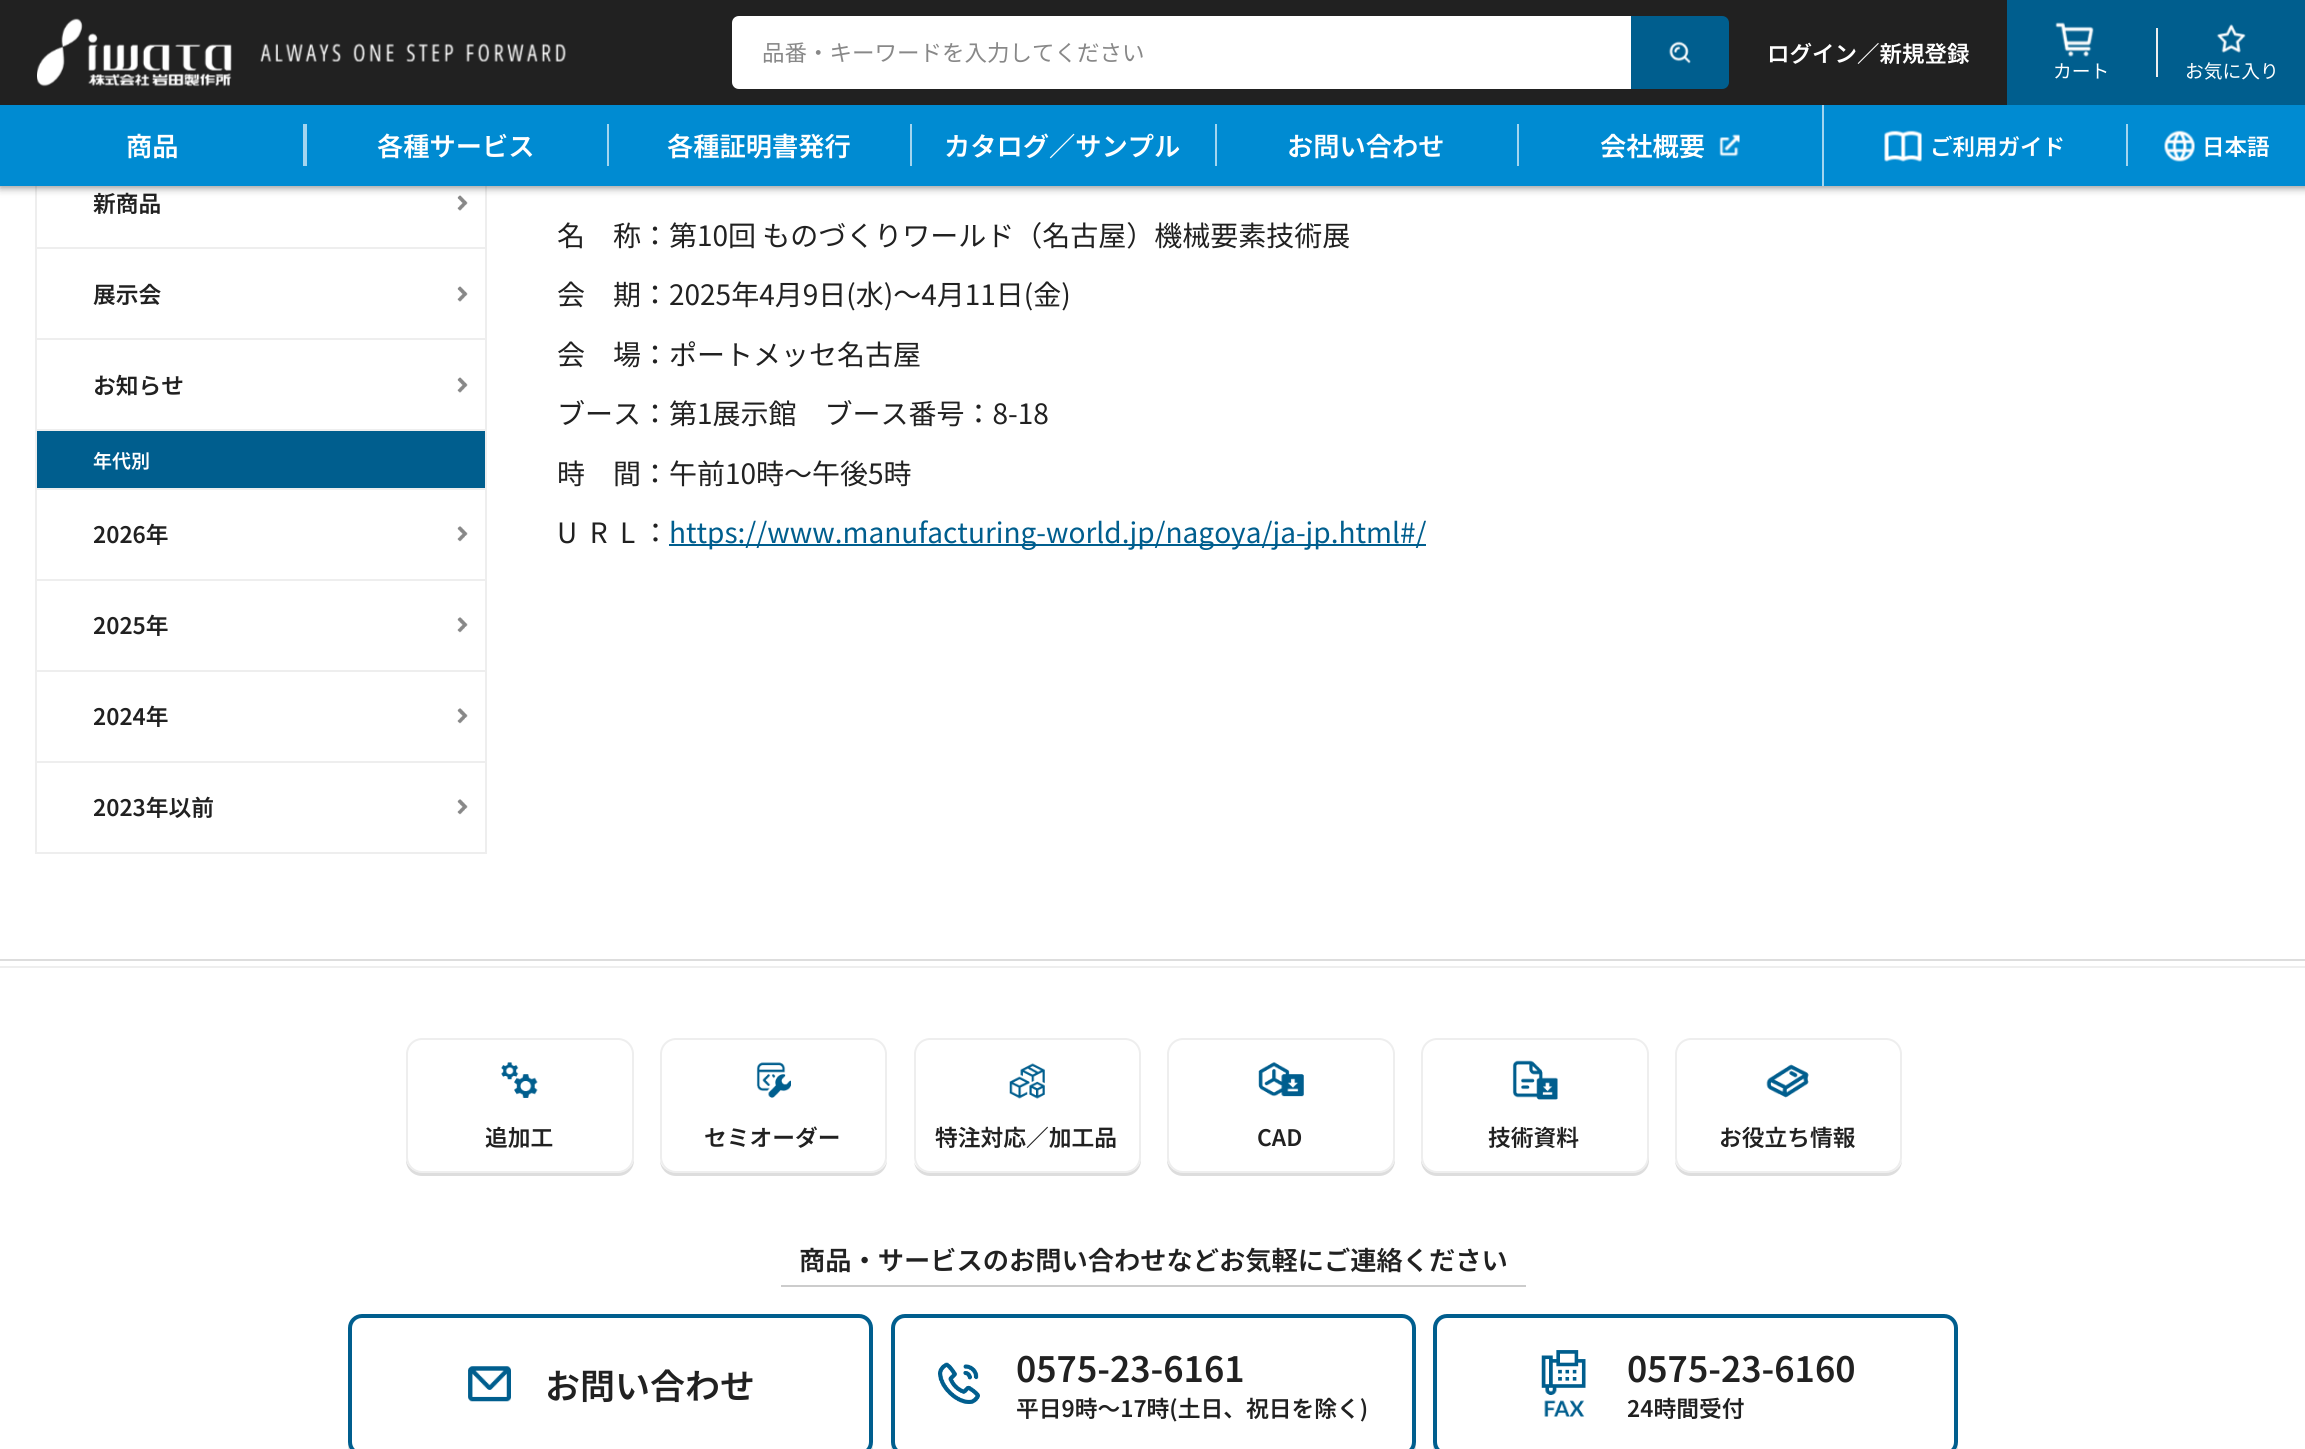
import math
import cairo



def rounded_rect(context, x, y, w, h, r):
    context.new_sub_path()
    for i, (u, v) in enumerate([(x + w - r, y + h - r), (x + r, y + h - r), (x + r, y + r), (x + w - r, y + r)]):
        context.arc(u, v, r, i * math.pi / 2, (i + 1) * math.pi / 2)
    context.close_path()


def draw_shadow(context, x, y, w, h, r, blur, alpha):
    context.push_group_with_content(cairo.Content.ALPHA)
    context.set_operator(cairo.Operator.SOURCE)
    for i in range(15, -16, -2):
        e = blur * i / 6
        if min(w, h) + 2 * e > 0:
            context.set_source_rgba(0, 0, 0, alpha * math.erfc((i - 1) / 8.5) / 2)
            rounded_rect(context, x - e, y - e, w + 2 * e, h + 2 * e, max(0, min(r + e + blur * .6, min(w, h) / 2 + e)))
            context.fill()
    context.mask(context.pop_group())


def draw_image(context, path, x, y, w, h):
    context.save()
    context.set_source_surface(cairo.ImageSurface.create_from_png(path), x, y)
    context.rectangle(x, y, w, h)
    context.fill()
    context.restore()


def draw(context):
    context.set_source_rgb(1, 1, 1)
    context.paint()
    context.set_source_rgb(238 / 255, 238 / 255, 238 / 255)
    context.rectangle(485, 186, 2, 668)
    context.fill()
    context.rectangle(35, 247, 452, 2)
    context.fill()
    context.rectangle(35, 186, 2, 63)
    context.fill()
    draw_image(context, "images/9.png", 457, 195, 11, 16)
    context.set_source_rgb(0, 0, 0)
    draw_shadow(context, 0, 2, 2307, 185, 0, 4.5, 0.5)
    context.set_source_rgb(33 / 255, 33 / 255, 33 / 255)
    context.rectangle(0, 0, 2007, 105)
    context.fill()
    draw_image(context, "images/1.png", 37, 18, 195, 69)
    draw_image(context, "images/2.png", 260, 43, 306, 19)
    context.set_source_rgb(1, 1, 1)
    context.new_path()
    context.move_to(739, 16)
    context.line_to(1631, 16)
    context.line_to(1631, 89)
    context.line_to(739, 89)
    context.curve_to(735, 89, 732, 86, 732, 82)
    context.line_to(732, 23)
    context.curve_to(732, 19, 735, 16, 739, 16)
    context.close_path()
    context.fill()
    context.set_source_rgb(0, 94 / 255, 142 / 255)
    context.new_path()
    context.move_to(1631, 16)
    context.line_to(1722, 16)
    context.curve_to(1726, 16, 1729, 19, 1729, 23)
    context.line_to(1729, 82)
    context.curve_to(1729, 86, 1726, 89, 1722, 89)
    context.line_to(1631, 89)
    context.close_path()
    context.fill()
    draw_image(context, "images/3.png", 1668, 41, 23, 23)
    context.rectangle(2007, 0, 298, 105)
    context.fill()
    draw_image(context, "images/4.png", 2055, 22, 39, 35)
    context.set_source_rgb(238 / 255, 238 / 255, 238 / 255)
    context.rectangle(2156, 28, 2, 49)
    context.fill()
    draw_image(context, "images/5.png", 2216, 24, 30, 29)
    context.set_source_rgb(0, 139 / 255, 210 / 255)
    context.rectangle(0, 105, 2305, 81)
    context.fill()
    context.set_source_rgb(163 / 255, 213 / 255, 239 / 255)
    context.rectangle(303, 124, 4, 42)
    context.fill()
    context.rectangle(607, 124, 2, 42)
    context.fill()
    context.rectangle(910, 124, 2, 42)
    context.fill()
    context.rectangle(1215, 124, 2, 42)
    context.fill()
    context.rectangle(1517, 124, 2, 42)
    context.fill()
    draw_image(context, "images/6.png", 1719, 134, 21, 23)
    context.rectangle(1822, 105, 2, 81)
    context.fill()
    draw_image(context, "images/7.png", 1884, 130, 38, 32)
    context.rectangle(2126, 124, 2, 42)
    context.fill()
    draw_image(context, "images/8.png", 2164, 130, 31, 32)
    context.set_source_rgb(238 / 255, 238 / 255, 238 / 255)
    context.rectangle(35, 338, 452, 2)
    context.fill()
    context.rectangle(35, 249, 2, 91)
    context.fill()
    draw_image(context, "images/9.png", 457, 286, 11, 16)
    context.rectangle(35, 429, 452, 2)
    context.fill()
    context.rectangle(35, 340, 2, 91)
    context.fill()
    draw_image(context, "images/9.png", 457, 377, 11, 16)
    context.set_source_rgb(0, 94 / 255, 142 / 255)
    context.rectangle(37, 431, 448, 57)
    context.fill()
    context.set_source_rgb(238 / 255, 238 / 255, 238 / 255)
    context.rectangle(35, 488, 452, 2)
    context.fill()
    context.rectangle(35, 431, 2, 59)
    context.fill()
    context.rectangle(35, 579, 452, 2)
    context.fill()
    context.rectangle(35, 490, 2, 91)
    context.fill()
    draw_image(context, "images/10.png", 457, 526, 11, 16)
    context.rectangle(35, 670, 452, 2)
    context.fill()
    context.rectangle(35, 581, 2, 91)
    context.fill()
    draw_image(context, "images/10.png", 457, 617, 11, 16)
    context.rectangle(35, 761, 452, 2)
    context.fill()
    context.rectangle(35, 672, 2, 91)
    context.fill()
    draw_image(context, "images/10.png", 457, 708, 11, 16)
    context.rectangle(35, 852, 452, 2)
    context.fill()
    context.rectangle(35, 763, 2, 91)
    context.fill()
    draw_image(context, "images/10.png", 457, 799, 11, 16)
    context.set_source_rgb(0, 94 / 255, 142 / 255)
    context.rectangle(669, 544, 757, 2)
    context.fill()
    context.set_source_rgb(221 / 255, 221 / 255, 221 / 255)
    context.rectangle(0, 959, 2305, 2)
    context.fill()
    context.set_source_rgb(238 / 255, 238 / 255, 238 / 255)
    context.rectangle(0, 966, 2305, 2)
    context.fill()
    context.set_source_rgb(221 / 255, 221 / 255, 221 / 255)
    context.new_path()
    context.move_to(406, 1157)
    context.line_to(406, 1160)
    context.curve_to(406, 1169, 413, 1176, 422, 1176)
    context.line_to(618, 1176)
    context.curve_to(627, 1176, 634, 1169, 634, 1160)
    context.line_to(634, 1057)
    context.line_to(634, 1053)
    context.line_to(634, 1157)
    context.curve_to(634, 1166, 627, 1172, 618, 1172)
    context.line_to(421, 1172)
    context.curve_to(413, 1172, 406, 1166, 406, 1157)
    context.close_path()
    context.fill()
    context.set_source_rgb(1, 1, 1)
    rounded_rect(context, 407, 1039, 226, 133, 15)
    context.fill_preserve()
    context.set_source_rgb(238 / 255, 238 / 255, 238 / 255)
    context.stroke()
    draw_image(context, "images/11.png", 501, 1062, 37, 36)
    context.set_source_rgb(221 / 255, 221 / 255, 221 / 255)
    context.new_path()
    context.move_to(660, 1160)
    context.curve_to(660, 1169, 667, 1176, 676, 1176)
    context.line_to(871, 1176)
    context.curve_to(880, 1176, 887, 1169, 887, 1160)
    context.curve_to(886, 1167, 880, 1172, 872, 1172)
    context.line_to(675, 1172)
    context.curve_to(667, 1172, 661, 1167, 660, 1160)
    context.close_path()
    context.fill()
    context.set_source_rgb(1, 1, 1)
    rounded_rect(context, 661, 1039, 225, 133, 15)
    context.fill_preserve()
    context.set_source_rgb(238 / 255, 238 / 255, 238 / 255)
    context.stroke()
    draw_image(context, "images/12.png", 756, 1062, 35, 36)
    context.set_source_rgb(221 / 255, 221 / 255, 221 / 255)
    context.new_path()
    context.move_to(914, 1162)
    context.curve_to(915, 1170, 922, 1176, 930, 1176)
    context.line_to(1125, 1176)
    context.curve_to(1134, 1176, 1141, 1169, 1141, 1160)
    context.line_to(1141, 1157)
    context.curve_to(1141, 1166, 1134, 1172, 1126, 1172)
    context.line_to(929, 1172)
    context.curve_to(922, 1172, 916, 1168, 914, 1162)
    context.close_path()
    context.fill()
    context.set_source_rgb(1, 1, 1)
    rounded_rect(context, 915, 1039, 225, 133, 15)
    context.fill_preserve()
    context.set_source_rgb(238 / 255, 238 / 255, 238 / 255)
    context.stroke()
    draw_image(context, "images/13.png", 1009, 1063, 36, 36)
    context.set_source_rgb(221 / 255, 221 / 255, 221 / 255)
    context.new_path()
    context.move_to(1167, 1054)
    context.line_to(1167, 1160)
    context.curve_to(1167, 1169, 1174, 1176, 1183, 1176)
    context.line_to(1379, 1176)
    context.curve_to(1388, 1176, 1395, 1169, 1395, 1160)
    context.line_to(1395, 1054)
    context.line_to(1395, 1157)
    context.curve_to(1395, 1166, 1388, 1172, 1380, 1172)
    context.line_to(1182, 1172)
    context.curve_to(1174, 1172, 1167, 1166, 1167, 1157)
    context.close_path()
    context.fill()
    context.set_source_rgb(1, 1, 1)
    rounded_rect(context, 1168, 1039, 226, 133, 15)
    context.fill_preserve()
    context.set_source_rgb(238 / 255, 238 / 255, 238 / 255)
    context.stroke()
    draw_image(context, "images/14.png", 1258, 1062, 46, 35)
    context.set_source_rgb(221 / 255, 221 / 255, 221 / 255)
    context.new_path()
    context.move_to(1421, 1157)
    context.line_to(1421, 1160)
    context.curve_to(1421, 1169, 1428, 1176, 1437, 1176)
    context.line_to(1633, 1176)
    context.curve_to(1642, 1176, 1649, 1169, 1649, 1160)
    context.line_to(1649, 1057)
    context.line_to(1648, 1053)
    context.line_to(1648, 1157)
    context.curve_to(1648, 1166, 1642, 1172, 1633, 1172)
    context.line_to(1436, 1172)
    context.curve_to(1428, 1172, 1421, 1166, 1421, 1157)
    context.close_path()
    context.fill()
    context.set_source_rgb(1, 1, 1)
    rounded_rect(context, 1422, 1039, 226, 133, 15)
    context.fill_preserve()
    context.set_source_rgb(238 / 255, 238 / 255, 238 / 255)
    context.stroke()
    draw_image(context, "images/15.png", 1512, 1060, 46, 40)
    context.set_source_rgb(221 / 255, 221 / 255, 221 / 255)
    context.new_path()
    context.move_to(1675, 1160)
    context.curve_to(1675, 1169, 1682, 1176, 1691, 1176)
    context.line_to(1886, 1176)
    context.curve_to(1895, 1176, 1902, 1169, 1902, 1160)
    context.curve_to(1901, 1167, 1895, 1172, 1887, 1172)
    context.line_to(1690, 1172)
    context.curve_to(1682, 1172, 1676, 1167, 1675, 1160)
    context.close_path()
    context.fill()
    context.set_source_rgb(1, 1, 1)
    rounded_rect(context, 1676, 1039, 225, 133, 15)
    context.fill_preserve()
    context.set_source_rgb(238 / 255, 238 / 255, 238 / 255)
    context.stroke()
    draw_image(context, "images/16.png", 1766, 1064, 43, 34)
    context.set_source_rgb(204 / 255, 204 / 255, 204 / 255)
    context.rectangle(781, 1285, 745, 2)
    context.fill()
    context.set_source_rgb(221 / 255, 221 / 255, 221 / 255)
    context.new_path()
    context.move_to(348, 1329)
    context.line_to(348, 1446)
    context.curve_to(348, 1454, 354, 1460, 362, 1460)
    context.line_to(859, 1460)
    context.curve_to(867, 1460, 873, 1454, 873, 1446)
    context.line_to(873, 1445)
    context.curve_to(872, 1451, 866, 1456, 859, 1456)
    context.line_to(362, 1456)
    context.curve_to(355, 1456, 348, 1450, 348, 1442)
    context.close_path()
    context.fill()
    rounded_rect(context, 350, 1316, 521, 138, 12)
    context.set_source_rgb(0, 94 / 255, 142 / 255)
    context.set_line_width(4)
    context.stroke()
    draw_image(context, "images/17.png", 468, 1366, 43, 36)
    context.set_source_rgb(221 / 255, 221 / 255, 221 / 255)
    context.new_path()
    context.move_to(891, 1445)
    context.line_to(891, 1446)
    context.curve_to(891, 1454, 897, 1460, 905, 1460)
    context.line_to(1402, 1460)
    context.curve_to(1410, 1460, 1416, 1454, 1416, 1446)
    context.line_to(1416, 1329)
    context.line_to(1416, 1442)
    context.curve_to(1416, 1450, 1409, 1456, 1402, 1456)
    context.line_to(905, 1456)
    context.curve_to(898, 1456, 892, 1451, 891, 1445)
    context.close_path()
    context.fill()
    rounded_rect(context, 893, 1316, 521, 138, 12)
    context.set_source_rgb(0, 94 / 255, 142 / 255)
    context.stroke()
    draw_image(context, "images/18.png", 938, 1362, 42, 42)
    context.set_source_rgb(221 / 255, 221 / 255, 221 / 255)
    context.new_path()
    context.move_to(1433, 1329)
    context.line_to(1433, 1446)
    context.curve_to(1433, 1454, 1439, 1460, 1447, 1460)
    context.line_to(1944, 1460)
    context.curve_to(1952, 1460, 1958, 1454, 1958, 1446)
    context.line_to(1958, 1445)
    context.curve_to(1957, 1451, 1951, 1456, 1944, 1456)
    context.line_to(1447, 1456)
    context.curve_to(1440, 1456, 1433, 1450, 1433, 1442)
    context.close_path()
    context.fill()
    rounded_rect(context, 1435, 1316, 521, 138, 12)
    context.set_source_rgb(0, 94 / 255, 142 / 255)
    context.stroke()
    draw_image(context, "images/19.png", 1541, 1350, 45, 67)
    context.select_font_face("Noto Sans JP")
    context.set_font_size(22.5)
    context.set_source_rgb(136 / 255, 136 / 255, 136 / 255)
    context.move_to(762, 61)
    context.show_text("品番・キーワードを入力してください")
    context.select_font_face("Noto Sans JP SemiBold")
    context.set_source_rgb(1, 1, 1)
    context.move_to(1767, 62)
    context.show_text("ログイン／新規登録")
    context.select_font_face("Noto Sans JP")
    context.set_font_size(18.75)
    context.move_to(2053, 78)
    context.show_text("カート")
    context.move_to(2185, 78)
    context.show_text("お気に入り")
    context.select_font_face("Noto Sans JP SemiBold")
    context.set_font_size(26.25)
    context.move_to(126, 156)
    context.show_text("商品")
    context.move_to(377, 156)
    context.show_text("各種サービス")
    context.move_to(667, 156)
    context.show_text("各種証明書発行")
    context.move_to(944, 156)
    context.show_text("カタログ／サンプル")
    context.move_to(1287, 156)
    context.show_text("お問い合わせ")
    context.move_to(1600, 156)
    context.show_text("会社概要")
    context.set_font_size(22.5)
    context.move_to(1930, 155)
    context.show_text("ご利用ガイド")
    context.move_to(2202, 155)
    context.show_text("日本語")
    context.set_font_size(22.75)
    context.set_source_rgb(33 / 255, 33 / 255, 33 / 255)
    context.move_to(93, 212)
    context.show_text("新商品")
    context.move_to(93, 303)
    context.show_text("展示会")
    context.move_to(93, 394)
    context.show_text("お知らせ")
    context.set_font_size(19)
    context.set_source_rgb(1, 1, 1)
    context.move_to(93, 468)
    context.show_text("年代別")
    context.set_font_size(22.75)
    context.set_source_rgb(33 / 255, 33 / 255, 33 / 255)
    context.move_to(93, 543)
    context.show_text("2026年")
    context.move_to(93, 634)
    context.show_text("2025年")
    context.move_to(93, 725)
    context.show_text("2024年")
    context.move_to(93, 816)
    context.show_text("2023年以前")
    context.select_font_face("Noto Sans JP")
    context.set_font_size(28)
    context.move_to(557, 246)
    context.show_text("名　称：第10回 ものづくりワールド（名古屋）機械要素技術展")
    context.move_to(557, 305)
    context.show_text("会　期：2025年4月9日(水)～4月11日(金)")
    context.move_to(557, 365)
    context.show_text("会　場：ポートメッセ名古屋")
    context.move_to(557, 424)
    context.show_text("ブース：第1展示館　ブース番号：8-18")
    context.move_to(557, 484)
    context.show_text("時　間：午前10時～午後5時")
    context.move_to(557, 543)
    context.show_text("U  R  L ：")
    context.set_source_rgb(0, 94 / 255, 142 / 255)
    context.move_to(669, 543)
    context.show_text("https://www.manufacturing-world.jp/nagoya/ja-jp.html#/")
    context.select_font_face("Noto Sans JP SemiBold")
    context.set_font_size(22.75)
    context.set_source_rgb(33 / 255, 33 / 255, 33 / 255)
    context.move_to(485, 1146)
    context.show_text("追加工")
    context.move_to(704, 1146)
    context.show_text("セミオーダー")
    context.move_to(935, 1146)
    context.show_text("特注対応／加工品")
    context.move_to(1257, 1146)
    context.show_text("CAD")
    context.move_to(1488, 1146)
    context.show_text("技術資料")
    context.move_to(1719, 1146)
    context.show_text("お役立ち情報")
    context.set_font_size(26.25)
    context.move_to(799, 1270)
    context.show_text("商品・サービスのお問い合わせなどお気軽にご連絡ください")
    context.set_font_size(35)
    context.move_to(545, 1399)
    context.show_text("お問い合わせ")
    context.move_to(1016, 1382)
    context.show_text("0575-23-6161")
    context.set_font_size(22.75)
    context.move_to(1016, 1417)
    context.show_text("平日9時～17時(土日、祝日を除く)")
    context.set_font_size(35)
    context.move_to(1627, 1382)
    context.show_text("0575-23-6160")
    context.set_font_size(22.75)
    context.move_to(1627, 1417)
    context.show_text("24時間受付")


surface = cairo.ImageSurface(cairo.Format.RGB24, 2305, 1449)
context = cairo.Context(surface)
options = cairo.FontOptions()
options.set_hint_metrics(cairo.HintMetrics.OFF)
options.set_hint_style(cairo.HintStyle.NONE)
context.set_font_options(options)
context.set_miter_limit(4)
draw(context)
surface.write_to_png("out.png")
